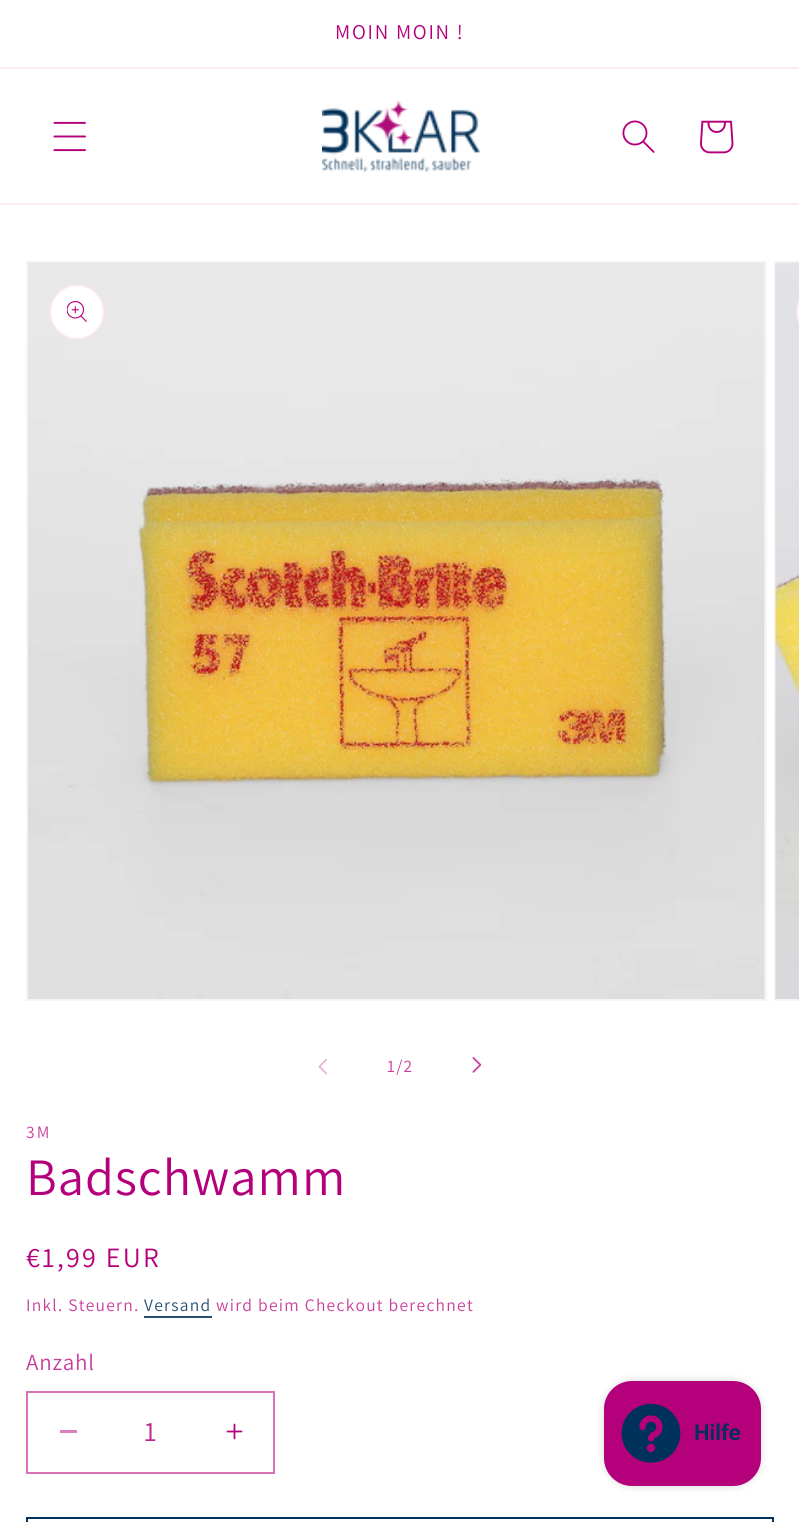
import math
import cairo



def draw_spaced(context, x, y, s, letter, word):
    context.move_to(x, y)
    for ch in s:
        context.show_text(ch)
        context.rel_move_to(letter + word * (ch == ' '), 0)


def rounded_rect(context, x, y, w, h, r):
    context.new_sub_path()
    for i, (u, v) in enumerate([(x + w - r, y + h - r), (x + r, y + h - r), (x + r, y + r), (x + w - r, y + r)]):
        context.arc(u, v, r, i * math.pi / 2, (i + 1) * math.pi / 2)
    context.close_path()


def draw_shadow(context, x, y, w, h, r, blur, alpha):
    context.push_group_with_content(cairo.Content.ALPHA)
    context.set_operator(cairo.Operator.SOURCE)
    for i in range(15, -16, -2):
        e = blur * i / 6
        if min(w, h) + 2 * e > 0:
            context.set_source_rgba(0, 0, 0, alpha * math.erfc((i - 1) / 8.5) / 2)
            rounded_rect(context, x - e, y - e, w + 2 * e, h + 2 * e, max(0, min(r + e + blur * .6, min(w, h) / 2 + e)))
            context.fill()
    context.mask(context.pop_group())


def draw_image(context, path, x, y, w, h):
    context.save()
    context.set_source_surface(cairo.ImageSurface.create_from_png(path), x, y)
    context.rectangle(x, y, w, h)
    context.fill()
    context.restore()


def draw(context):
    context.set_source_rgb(1, 1, 1)
    context.paint()
    context.set_source_rgb(249 / 255, 235 / 255, 245 / 255)
    context.rectangle(0, 67, 799, 2)
    context.fill()
    context.rectangle(0, 203, 799, 2)
    context.fill()
    draw_image(context, "images/1.png", 53, 121, 33, 31)
    draw_image(context, "images/2.png", 322, 100, 158, 72)
    draw_image(context, "images/3.png", 622, 120, 33, 33)
    draw_image(context, "images/4.png", 700, 120, 34, 34)
    context.rectangle(27, 262, 739, 738)
    context.set_source_rgb(251 / 255, 242 / 255, 248 / 255)
    context.stroke()
    draw_image(context, "images/5.png", 28, 262, 737, 737)
    context.set_source_rgb(1, 1, 1)
    context.arc(77, 312, 28, 0, 2 * math.pi)
    context.fill()
    context.arc(77, 312, 27, 0, 2 * math.pi)
    context.set_source_rgba(181 / 255, 0, 124 / 255, 0.1)
    context.stroke()
    draw_image(context, "images/6.png", 67, 301, 20, 21)
    context.rectangle(775, 262, 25, 738)
    context.set_source_rgb(251 / 255, 242 / 255, 248 / 255)
    context.stroke()
    draw_image(context, "images/7.png", 775, 262, 24, 737)
    context.set_source_rgb(1, 1, 1)
    context.new_path()
    context.move_to(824, 284)
    context.line_to(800, 284)
    context.line_to(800, 340)
    context.line_to(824, 340)
    context.curve_to(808.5, 340, 796, 327.5, 796, 312)
    context.curve_to(796, 296.5, 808.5, 284, 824, 284)
    context.close_path()
    context.fill()
    rounded_rect(context, 797, 285, 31, 54, 27)
    context.set_source_rgba(181 / 255, 0, 124 / 255, 0.1)
    context.stroke()
    draw_image(context, "images/8.png", 318, 1058, 10, 17)
    draw_image(context, "images/9.png", 472, 1057, 10, 16)
    context.set_source_rgb(38 / 255, 80 / 255, 115 / 255)
    context.rectangle(144, 1316, 68, 2)
    context.fill()
    context.set_source_rgb(218 / 255, 128 / 255, 190 / 255)
    context.rectangle(60, 1430, 17, 3)
    context.fill()
    draw_image(context, "images/10.png", 226, 1423, 17, 17)
    context.rectangle(27, 1392, 247, 81)
    context.set_source_rgb(214 / 255, 115 / 255, 183 / 255)
    context.stroke()
    context.rectangle(27, 1518, 746, 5)
    context.set_source_rgb(0, 49 / 255, 90 / 255)
    context.stroke()
    context.set_source_rgb(0, 0, 0)
    draw_shadow(context, 604, 1381, 157, 105, 28, 4.5, 0.15)
    context.set_source_rgb(181 / 255, 0, 124 / 255)
    rounded_rect(context, 604, 1381, 157, 105, 28)
    context.fill()
    draw_image(context, "images/11.png", 621, 1403, 60, 60)
    context.select_font_face("Assistant")
    context.set_font_size(21)
    draw_spaced(context, 335, 39, "MOIN MOIN !", 1.75, 0)
    context.set_font_size(17.5)
    context.set_source_rgb(200 / 255, 64 / 255, 157 / 255)
    draw_spaced(context, 387, 1072, "1/2", 1.25, 0)
    draw_spaced(context, 26, 1138, "3M", 2.25, 0)
    context.set_font_size(52.5)
    context.set_source_rgb(181 / 255, 0, 124 / 255)
    draw_spaced(context, 26, 1195, "Badschwamm", 1, 0)
    context.set_font_size(28)
    draw_spaced(context, 26, 1267, "€1,99 EUR", 2.25, 0)
    context.set_font_size(17.5)
    context.set_source_rgb(200 / 255, 64 / 255, 157 / 255)
    draw_spaced(context, 26, 1311, "Inkl. Steuern.", 1.25, 0)
    context.set_source_rgb(38 / 255, 80 / 255, 115 / 255)
    draw_spaced(context, 144, 1311, "Versand", 1.25, 0)
    context.set_source_rgb(200 / 255, 64 / 255, 157 / 255)
    draw_spaced(context, 216, 1311, "wird beim Checkout berechnet", 1.25, 0)
    context.set_font_size(23)
    draw_spaced(context, 26, 1370, "Anzahl", 0.75, 0)
    context.set_font_size(28)
    context.set_source_rgb(192 / 255, 38 / 255, 144 / 255)
    context.move_to(144, 1441)
    context.show_text("1")
    context.select_font_face("Roboto SemiBold")
    context.set_font_size(22)
    context.set_source_rgb(0, 49 / 255, 90 / 255)
    context.move_to(694, 1440)
    context.show_text("Hilfe")


surface = cairo.ImageSurface(cairo.Format.RGB24, 799, 1522)
context = cairo.Context(surface)
options = cairo.FontOptions()
options.set_hint_metrics(cairo.HintMetrics.OFF)
options.set_hint_style(cairo.HintStyle.NONE)
context.set_font_options(options)
context.set_miter_limit(4)
draw(context)
surface.write_to_png("out.png")
